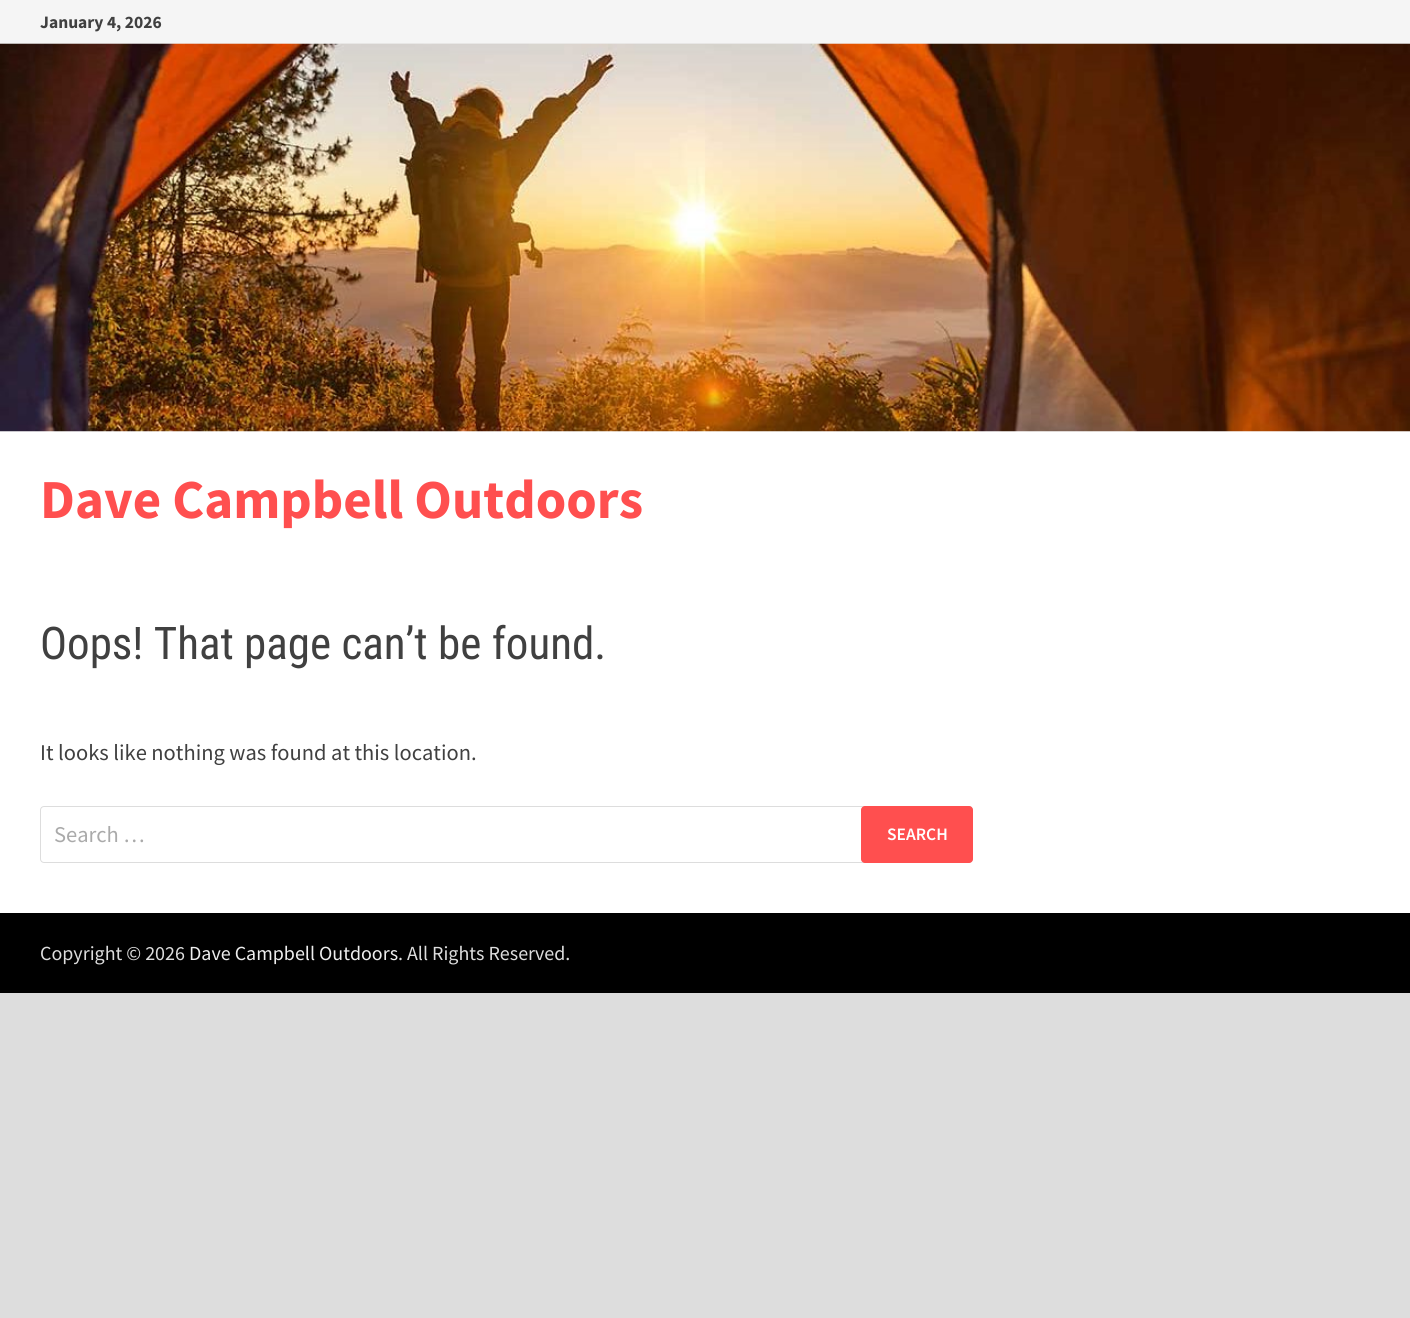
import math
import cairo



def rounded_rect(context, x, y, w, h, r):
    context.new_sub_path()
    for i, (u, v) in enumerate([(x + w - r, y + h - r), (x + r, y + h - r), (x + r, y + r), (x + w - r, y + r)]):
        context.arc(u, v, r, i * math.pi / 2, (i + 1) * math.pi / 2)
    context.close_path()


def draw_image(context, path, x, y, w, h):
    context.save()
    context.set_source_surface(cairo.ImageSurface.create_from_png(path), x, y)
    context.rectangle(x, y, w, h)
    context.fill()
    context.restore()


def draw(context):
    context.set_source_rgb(221 / 255, 221 / 255, 221 / 255)
    context.paint()
    context.set_source_rgb(1, 1, 1)
    context.rectangle(0, 431, 1410, 482)
    context.fill()
    context.set_source_rgb(245 / 255, 245 / 255, 245 / 255)
    context.rectangle(0, 0, 1410, 43)
    context.fill()
    context.set_source_rgb(238 / 255, 238 / 255, 238 / 255)
    context.rectangle(0, 43, 1410, 1)
    context.fill()
    draw_image(context, "images/1.png", 0, 43, 1410, 389)
    rounded_rect(context, 40.5, 806.5, 932, 56, 3.5)
    context.set_source_rgb(221 / 255, 221 / 255, 221 / 255)
    context.set_line_width(1)
    context.stroke()
    context.set_source_rgb(1, 79 / 255, 79 / 255)
    rounded_rect(context, 861, 806, 112, 57, 4)
    context.fill()
    context.set_source_rgb(0, 0, 0)
    context.rectangle(0, 913, 1410, 80)
    context.fill()
    context.select_font_face("Source Sans Pro", cairo.FontSlant.NORMAL, cairo.FontWeight.BOLD)
    context.set_font_size(17.5)
    context.set_source_rgb(64 / 255, 64 / 255, 64 / 255)
    context.move_to(40, 28)
    context.show_text("January 4, 2026")
    context.set_font_size(55)
    context.set_source_rgb(1, 79 / 255, 79 / 255)
    context.move_to(40, 518)
    context.show_text("Dave Campbell Outdoors")
    context.select_font_face("Roboto Condensed")
    context.set_font_size(45)
    context.set_source_rgb(64 / 255, 64 / 255, 64 / 255)
    context.move_to(40, 659)
    context.show_text("Oops! That page can’t be found.")
    context.select_font_face("Source Sans Pro")
    context.set_font_size(22.5)
    context.move_to(40, 760)
    context.show_text("It looks like nothing was found at this location.")
    context.set_source_rgb(170 / 255, 170 / 255, 170 / 255)
    context.move_to(54, 842)
    context.show_text("Search …")
    context.select_font_face("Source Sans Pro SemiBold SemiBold")
    context.set_font_size(17.5)
    context.set_source_rgb(1, 1, 1)
    context.move_to(887, 840)
    context.show_text("SEARCH")
    context.select_font_face("Source Sans Pro")
    context.set_font_size(20)
    context.set_source_rgb(221 / 255, 221 / 255, 221 / 255)
    context.move_to(40, 960)
    context.show_text("Copyright © 2026")
    context.set_source_rgb(238 / 255, 238 / 255, 238 / 255)
    context.move_to(189, 960)
    context.show_text("Dave Campbell Outdoors")
    context.set_source_rgb(221 / 255, 221 / 255, 221 / 255)
    context.move_to(398, 960)
    context.show_text(". All Rights Reserved.")


surface = cairo.ImageSurface(cairo.Format.RGB24, 1410, 1318)
context = cairo.Context(surface)
options = cairo.FontOptions()
options.set_hint_metrics(cairo.HintMetrics.OFF)
options.set_hint_style(cairo.HintStyle.NONE)
context.set_font_options(options)
context.set_miter_limit(4)
draw(context)
surface.write_to_png("out.png")
